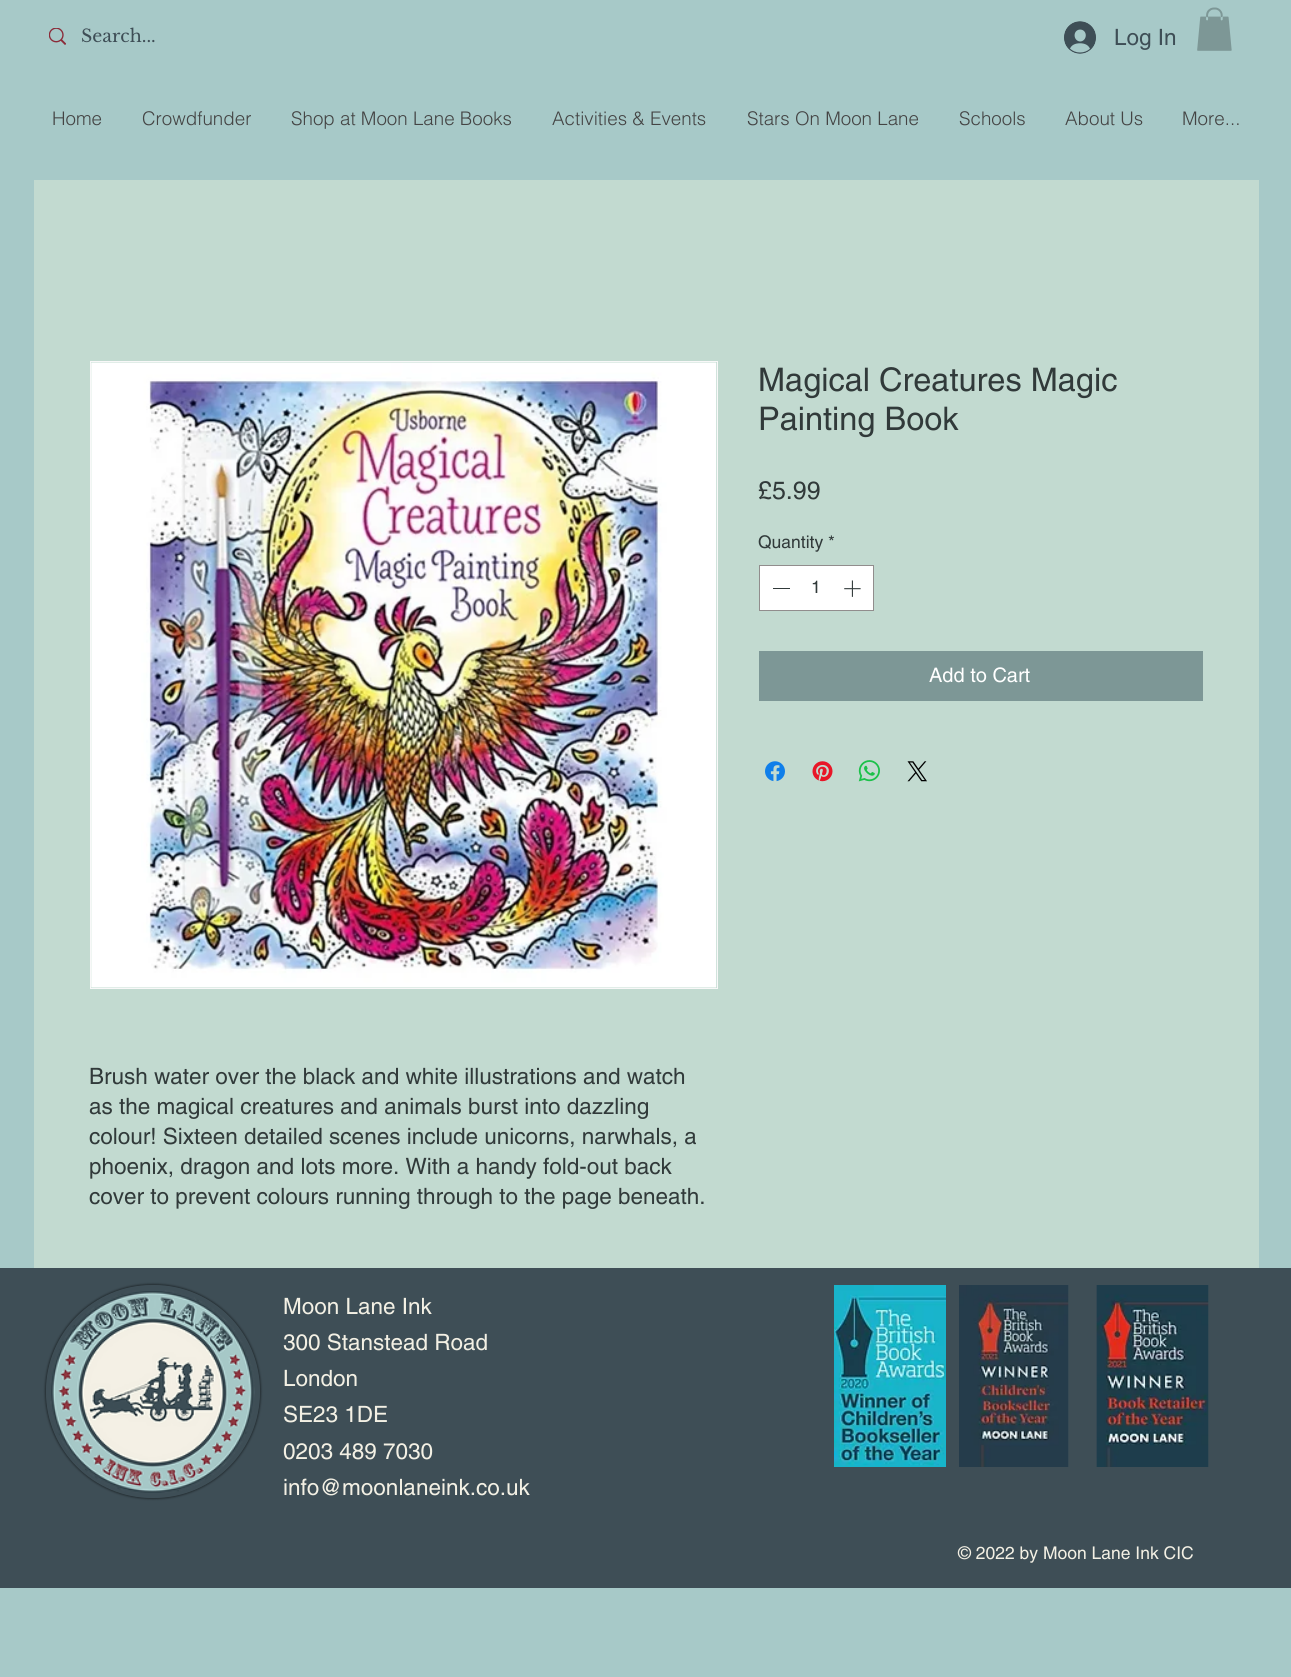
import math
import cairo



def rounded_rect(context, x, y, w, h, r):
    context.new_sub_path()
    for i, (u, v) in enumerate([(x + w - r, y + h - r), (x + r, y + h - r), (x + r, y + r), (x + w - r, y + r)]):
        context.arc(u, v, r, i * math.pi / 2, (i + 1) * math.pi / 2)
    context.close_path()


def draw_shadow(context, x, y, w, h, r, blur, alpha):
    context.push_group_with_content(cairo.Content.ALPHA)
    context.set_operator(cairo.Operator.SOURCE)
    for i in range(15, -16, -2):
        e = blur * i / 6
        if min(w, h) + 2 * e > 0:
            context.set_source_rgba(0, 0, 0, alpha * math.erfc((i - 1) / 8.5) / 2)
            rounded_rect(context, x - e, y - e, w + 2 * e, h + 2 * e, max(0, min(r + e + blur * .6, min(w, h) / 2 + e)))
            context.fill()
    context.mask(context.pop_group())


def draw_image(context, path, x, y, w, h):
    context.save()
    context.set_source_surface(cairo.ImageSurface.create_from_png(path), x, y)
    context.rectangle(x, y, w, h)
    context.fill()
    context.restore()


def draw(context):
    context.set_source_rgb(167 / 255, 201 / 255, 200 / 255)
    context.paint()
    draw_image(context, "images/1.png", 49, 28, 17, 17)
    draw_image(context, "images/2.png", 1064, 21, 32, 33)
    draw_image(context, "images/3.png", 1197, 7, 35, 44)
    context.set_source_rgb(194 / 255, 218 / 255, 208 / 255)
    context.rectangle(34, 180, 1225, 1088)
    context.fill()
    context.set_source_rgb(1, 1, 1)
    context.rectangle(759.5, 565.5, 114, 45)
    context.fill_preserve()
    context.set_source_rgb(145 / 255, 141 / 255, 141 / 255)
    context.set_line_width(1)
    context.stroke()
    context.set_source_rgb(49 / 255, 58 / 255, 58 / 255)
    context.rectangle(773, 588, 17, 1)
    context.fill()
    draw_image(context, "images/4.png", 844, 580, 17, 17)
    context.set_source_rgb(125 / 255, 151 / 255, 150 / 255)
    context.rectangle(759, 651, 444, 50)
    context.fill()
    draw_image(context, "images/5.png", 765, 761, 20, 21)
    draw_image(context, "images/6.png", 812, 761, 21, 21)
    draw_image(context, "images/7.png", 858, 760, 22, 22)
    draw_image(context, "images/8.png", 907, 761, 20, 21)
    context.rectangle(90.5, 361.5, 627, 627)
    context.set_source_rgb(248 / 255, 248 / 255, 248 / 255)
    context.stroke()
    draw_image(context, "images/9.png", 91, 362, 626, 626)
    context.set_source_rgb(62 / 255, 78 / 255, 86 / 255)
    context.rectangle(0, 1268, 1291, 320)
    context.fill()
    context.save()
    context.set_fill_rule(cairo.FillRule.EVEN_ODD)
    context.new_path()
    context.move_to(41, 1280)
    context.line_to(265, 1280)
    context.line_to(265, 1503)
    context.line_to(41, 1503)
    context.close_path()
    context.move_to(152.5, 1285)
    context.line_to(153.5, 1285)
    context.curve_to(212.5, 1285, 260, 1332.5, 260, 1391.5)
    context.curve_to(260, 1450.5, 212.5, 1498, 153.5, 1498)
    context.line_to(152.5, 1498)
    context.curve_to(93.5, 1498, 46, 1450.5, 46, 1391.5)
    context.curve_to(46, 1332.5, 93.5, 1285, 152.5, 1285)
    context.close_path()
    context.clip()
    context.set_source_rgb(0, 0, 0)
    draw_shadow(context, 45, 1284, 216, 215, 107.5, 1, 0.45)
    context.restore()
    draw_image(context, "images/10.png", 50, 1290, 205, 203)
    draw_image(context, "images/11.png", 834, 1285, 112, 182)
    draw_image(context, "images/12.png", 959, 1285, 110, 182)
    draw_image(context, "images/13.png", 1096, 1285, 113, 182)
    context.select_font_face("Libre Baskerville")
    context.set_font_size(17.5)
    context.move_to(81, 42)
    context.show_text("Search...")
    context.select_font_face("helvetica")
    context.set_font_size(22.5)
    context.move_to(1114, 45)
    context.show_text("Log In")
    context.select_font_face("helvetica Light")
    context.set_font_size(18.75)
    context.set_source_rgb(68 / 255, 68 / 255, 68 / 255)
    context.move_to(52, 125)
    context.show_text("Home")
    context.move_to(142, 125)
    context.show_text("Crowdfunder")
    context.move_to(291, 125)
    context.show_text("Shop at Moon Lane Books")
    context.move_to(552, 125)
    context.show_text("Activities & Events")
    context.move_to(747, 125)
    context.show_text("Stars On Moon Lane")
    context.move_to(959, 125)
    context.show_text("Schools")
    context.move_to(1065, 125)
    context.show_text("About Us")
    context.move_to(1182, 125)
    context.show_text("More...")
    context.select_font_face("helvetica")
    context.set_font_size(32.5)
    context.set_source_rgb(49 / 255, 58 / 255, 58 / 255)
    context.move_to(758, 391)
    context.show_text("Magical Creatures Magic")
    context.move_to(758, 430)
    context.show_text("Painting Book")
    context.set_font_size(25)
    context.move_to(758, 499)
    context.show_text("£5.99")
    context.set_font_size(17.5)
    context.move_to(758, 548)
    context.show_text("Quantity *")
    context.move_to(811, 593)
    context.show_text("1")
    context.set_font_size(20)
    context.set_source_rgb(1, 1, 1)
    context.move_to(929, 682)
    context.show_text("Add to Cart")
    context.set_font_size(22.5)
    context.set_source_rgb(49 / 255, 58 / 255, 58 / 255)
    context.move_to(89, 1084)
    context.show_text("Brush water over the black and white illustrations and watch")
    context.move_to(89, 1114)
    context.show_text("as the magical creatures and animals burst into dazzling")
    context.move_to(89, 1144)
    context.show_text("colour! Sixteen detailed scenes include unicorns, narwhals, a")
    context.move_to(89, 1174)
    context.show_text("phoenix, dragon and lots more. With a handy fold-out back")
    context.move_to(89, 1204)
    context.show_text("cover to prevent colours running through to the page beneath.")
    context.set_source_rgb(243 / 255, 240 / 255, 228 / 255)
    context.move_to(283, 1314)
    context.show_text("Moon Lane Ink")
    context.move_to(283, 1350)
    context.show_text("300 Stanstead Road")
    context.move_to(283, 1386)
    context.show_text("London")
    context.move_to(283, 1422)
    context.show_text("SE23 1DE")
    context.move_to(283, 1459)
    context.show_text("0203 489 7030")
    context.move_to(283, 1495)
    context.show_text("info@moonlaneink.co.uk")
    context.set_font_size(17.5)
    context.move_to(958, 1559)
    context.show_text("© 2022 by Moon Lane Ink CIC")


surface = cairo.ImageSurface(cairo.Format.RGB24, 1291, 1677)
context = cairo.Context(surface)
options = cairo.FontOptions()
options.set_hint_metrics(cairo.HintMetrics.OFF)
options.set_hint_style(cairo.HintStyle.NONE)
context.set_font_options(options)
context.set_miter_limit(4)
draw(context)
surface.write_to_png("out.png")
